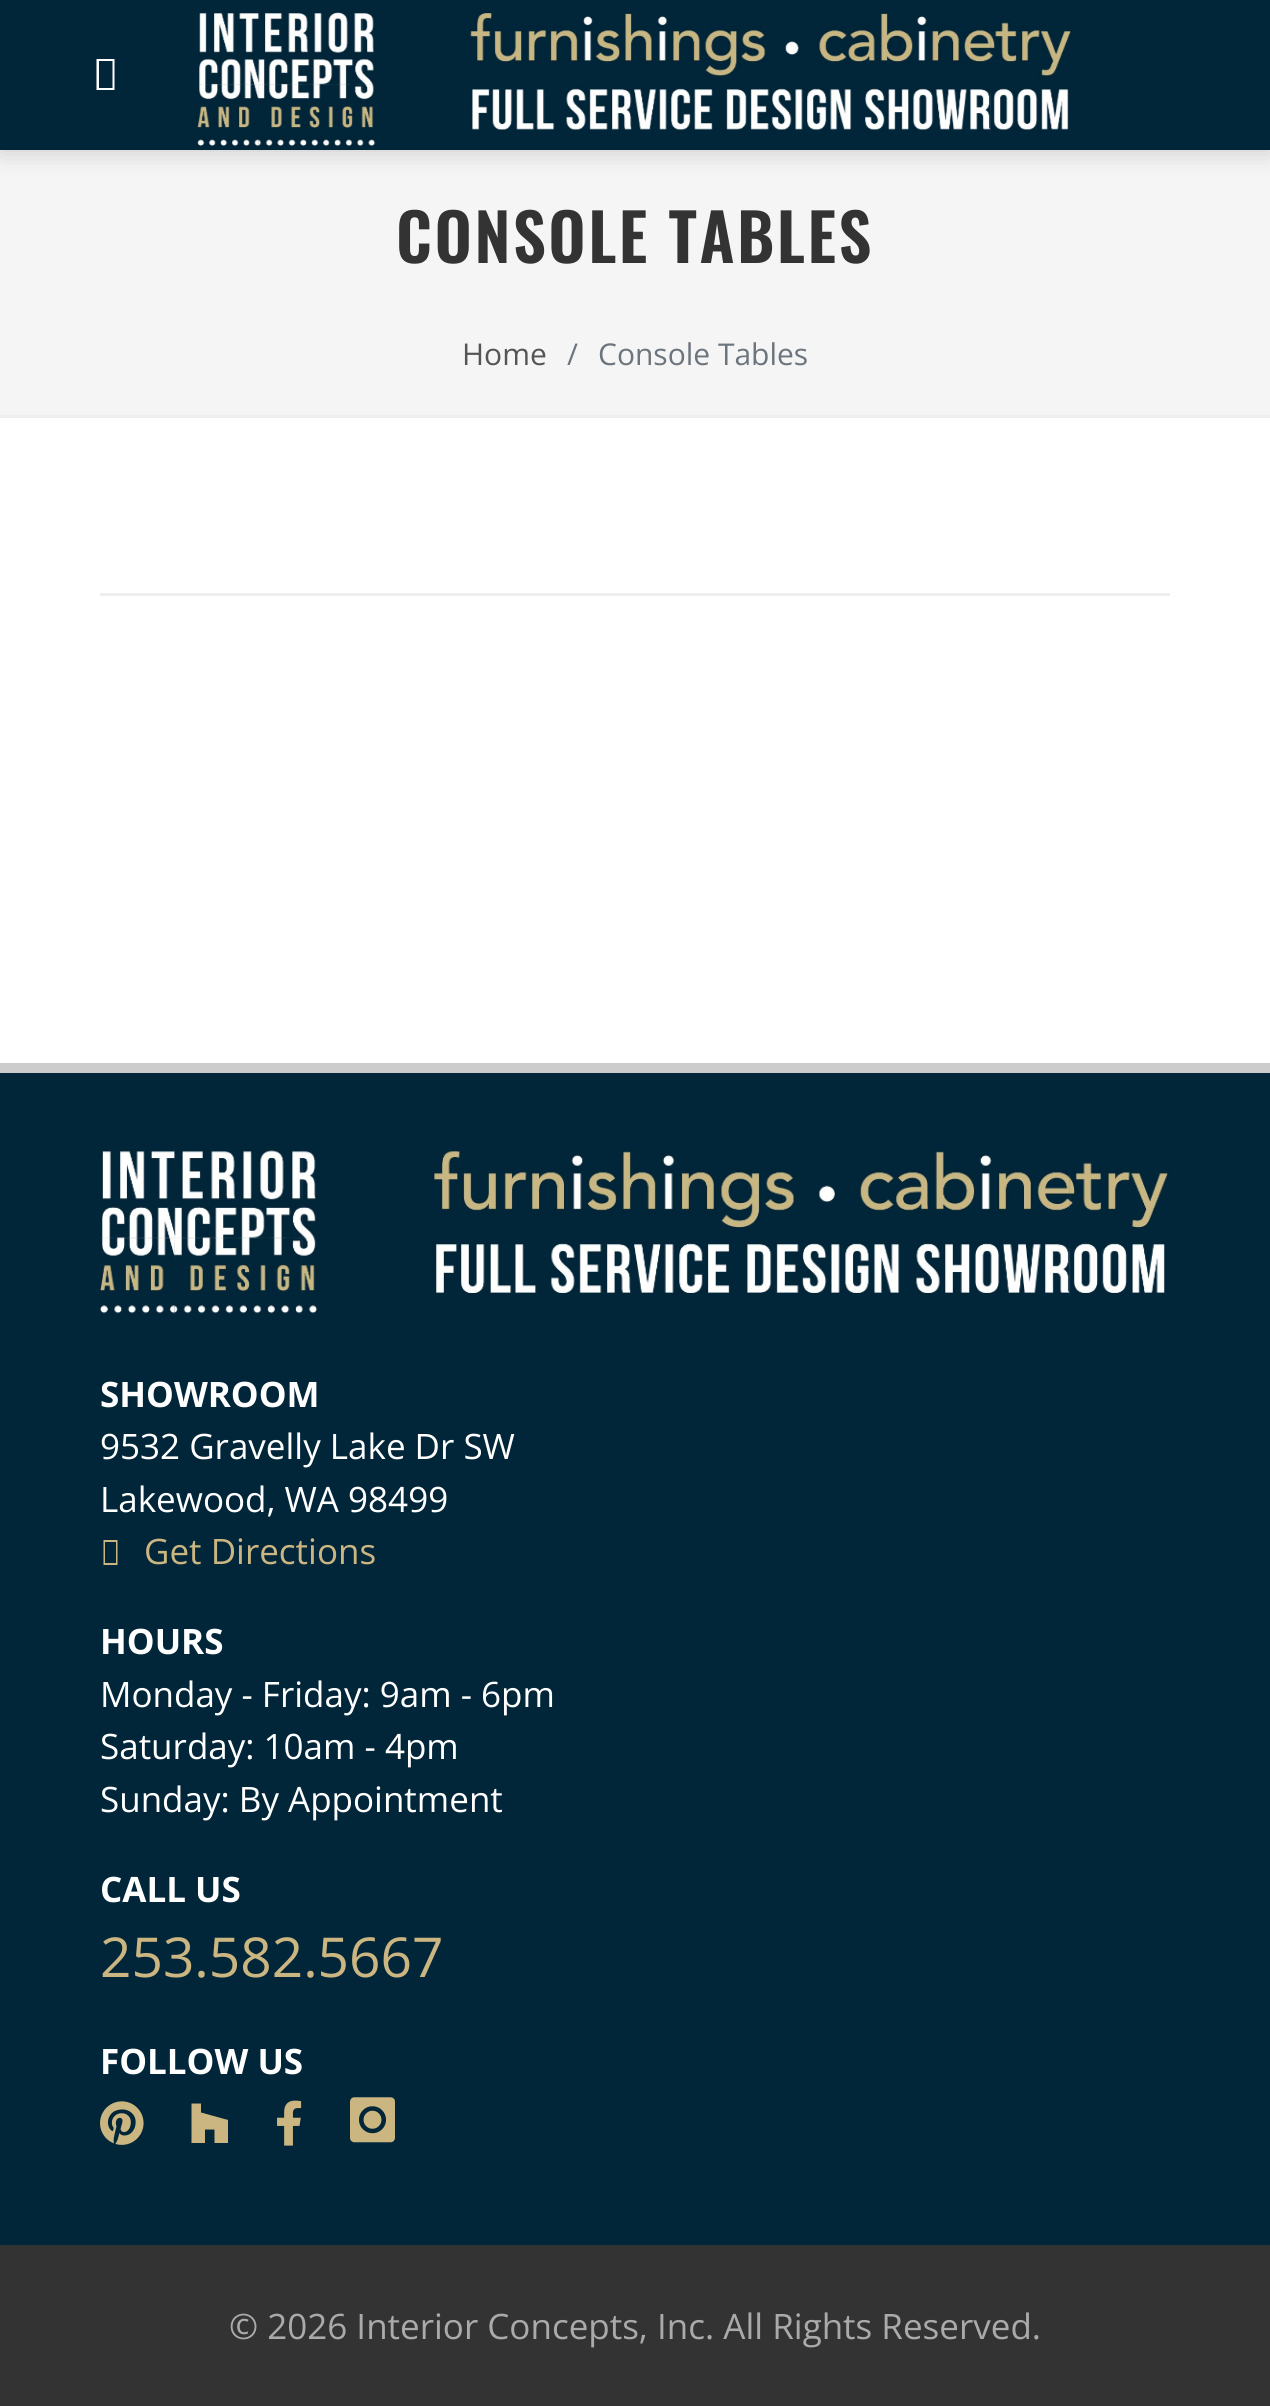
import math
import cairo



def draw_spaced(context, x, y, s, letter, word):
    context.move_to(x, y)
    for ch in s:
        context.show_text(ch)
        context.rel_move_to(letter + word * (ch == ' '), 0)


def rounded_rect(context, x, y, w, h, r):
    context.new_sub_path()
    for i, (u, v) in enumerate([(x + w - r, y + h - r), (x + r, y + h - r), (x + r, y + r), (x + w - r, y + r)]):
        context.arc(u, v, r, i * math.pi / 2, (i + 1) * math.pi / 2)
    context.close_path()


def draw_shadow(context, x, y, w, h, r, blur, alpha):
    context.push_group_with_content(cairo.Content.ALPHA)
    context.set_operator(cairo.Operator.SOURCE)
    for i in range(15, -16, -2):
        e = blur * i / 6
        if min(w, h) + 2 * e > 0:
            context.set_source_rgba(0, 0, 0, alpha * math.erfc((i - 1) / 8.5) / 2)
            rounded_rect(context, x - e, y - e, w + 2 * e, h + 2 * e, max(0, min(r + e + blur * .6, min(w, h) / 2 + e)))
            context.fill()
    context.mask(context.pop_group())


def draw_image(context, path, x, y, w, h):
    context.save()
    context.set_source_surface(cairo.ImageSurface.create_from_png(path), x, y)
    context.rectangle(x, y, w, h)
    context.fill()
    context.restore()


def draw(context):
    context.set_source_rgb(1, 1, 1)
    context.paint()
    context.set_source_rgb(245 / 255, 245 / 255, 245 / 255)
    context.rectangle(0, 150, 1270, 265)
    context.fill()
    context.set_source_rgb(0, 0, 0)
    draw_shadow(context, 0, 0, 1270, 150, 0, 12.5, 0.2)
    context.set_source_rgb(1 / 255, 38 / 255, 57 / 255)
    context.rectangle(0, 0, 1270, 150)
    context.fill()
    context.set_source_rgb(1, 1, 1)
    context.new_path()
    context.move_to(96.5, 90)
    context.line_to(96.5, 59)
    context.line_to(114.5, 59)
    context.line_to(114.5, 90)
    context.close_path()
    context.move_to(99, 88)
    context.line_to(112.5, 88)
    context.line_to(112.5, 61)
    context.line_to(99, 61)
    context.close_path()
    context.fill()
    draw_image(context, "images/1.png", 197, 11, 875, 136)
    context.set_source_rgb(238 / 255, 238 / 255, 238 / 255)
    context.rectangle(0, 415, 1270, 3)
    context.fill()
    context.rectangle(100, 593, 1070, 3)
    context.fill()
    context.set_source_rgb(1 / 255, 38 / 255, 57 / 255)
    context.rectangle(0, 1073, 1270, 1172)
    context.fill()
    context.set_source_rgb(204 / 255, 204 / 255, 204 / 255)
    context.rectangle(0, 1063, 1270, 10)
    context.fill()
    draw_image(context, "images/2.png", 100, 1148, 1070, 167)
    context.set_source_rgb(203 / 255, 182 / 255, 129 / 255)
    context.new_path()
    context.move_to(103.5, 1565)
    context.line_to(103.5, 1540)
    context.line_to(117.5, 1540)
    context.line_to(117.5, 1565)
    context.close_path()
    context.move_to(105, 1563)
    context.line_to(116, 1563)
    context.line_to(116, 1542)
    context.line_to(105, 1542)
    context.close_path()
    context.fill()
    draw_image(context, "images/3.png", 100, 2101, 44, 44)
    context.new_path()
    context.move_to(214.5, 2129.5)
    context.line_to(205, 2129.5)
    context.line_to(205, 2143)
    context.line_to(191.5, 2143)
    context.line_to(191.5, 2103.5)
    context.line_to(201, 2103.5)
    context.line_to(201, 2112.5)
    context.line_to(228, 2120)
    context.line_to(228, 2143)
    context.line_to(214.5, 2143)
    context.close_path()
    context.fill()
    draw_image(context, "images/4.png", 277, 2100, 25, 46)
    draw_image(context, "images/5.png", 350, 2097, 45, 46)
    context.set_source_rgb(51 / 255, 51 / 255, 51 / 255)
    context.rectangle(0, 2245, 1270, 161)
    context.fill()
    context.select_font_face("Oswald SemiBold")
    context.set_font_size(65)
    draw_spaced(context, 396, 263, "CONSOLE TABLES", 2.5, 0)
    context.select_font_face("Open Sans")
    context.set_font_size(30)
    context.set_source_rgb(85 / 255, 85 / 255, 85 / 255)
    context.move_to(462, 365)
    context.show_text("Home")
    context.set_source_rgb(108 / 255, 117 / 255, 125 / 255)
    context.move_to(567, 365)
    context.show_text("/")
    context.move_to(598, 365)
    context.show_text("Console Tables")
    context.select_font_face("Open Sans", cairo.FontSlant.NORMAL, cairo.FontWeight.BOLD)
    context.set_font_size(35)
    context.set_source_rgb(1, 1, 1)
    context.move_to(100, 1407)
    context.show_text("SHOWROOM")
    context.select_font_face("Open Sans")
    context.move_to(100, 1459)
    context.show_text("9532 Gravelly Lake Dr SW")
    context.move_to(100, 1512)
    context.show_text("Lakewood, WA 98499")
    context.set_source_rgb(203 / 255, 182 / 255, 129 / 255)
    context.move_to(144, 1564)
    context.show_text("Get Directions")
    context.select_font_face("Open Sans", cairo.FontSlant.NORMAL, cairo.FontWeight.BOLD)
    context.set_source_rgb(1, 1, 1)
    context.move_to(100, 1654)
    context.show_text("HOURS")
    context.select_font_face("Open Sans")
    context.move_to(100, 1707)
    context.show_text("Monday - Friday: 9am - 6pm")
    context.move_to(100, 1759)
    context.show_text("Saturday: 10am - 4pm")
    context.move_to(100, 1812)
    context.show_text("Sunday: By Appointment")
    context.select_font_face("Open Sans", cairo.FontSlant.NORMAL, cairo.FontWeight.BOLD)
    context.move_to(100, 1902)
    context.show_text("CALL US")
    context.select_font_face("Open Sans")
    context.set_font_size(55)
    context.set_source_rgb(203 / 255, 182 / 255, 129 / 255)
    context.move_to(100, 1977)
    context.show_text("253.582.5667")
    context.select_font_face("Open Sans", cairo.FontSlant.NORMAL, cairo.FontWeight.BOLD)
    context.set_font_size(35)
    context.set_source_rgb(1, 1, 1)
    context.move_to(100, 2074)
    context.show_text("FOLLOW US")
    context.select_font_face("Open Sans")
    context.set_source_rgb(170 / 255, 170 / 255, 170 / 255)
    context.move_to(229, 2339)
    context.show_text("© 2026 Interior Concepts, Inc. All Rights Reserved.")


surface = cairo.ImageSurface(cairo.Format.RGB24, 1270, 2406)
context = cairo.Context(surface)
options = cairo.FontOptions()
options.set_hint_metrics(cairo.HintMetrics.OFF)
options.set_hint_style(cairo.HintStyle.NONE)
context.set_font_options(options)
context.set_miter_limit(4)
draw(context)
surface.write_to_png("out.png")
